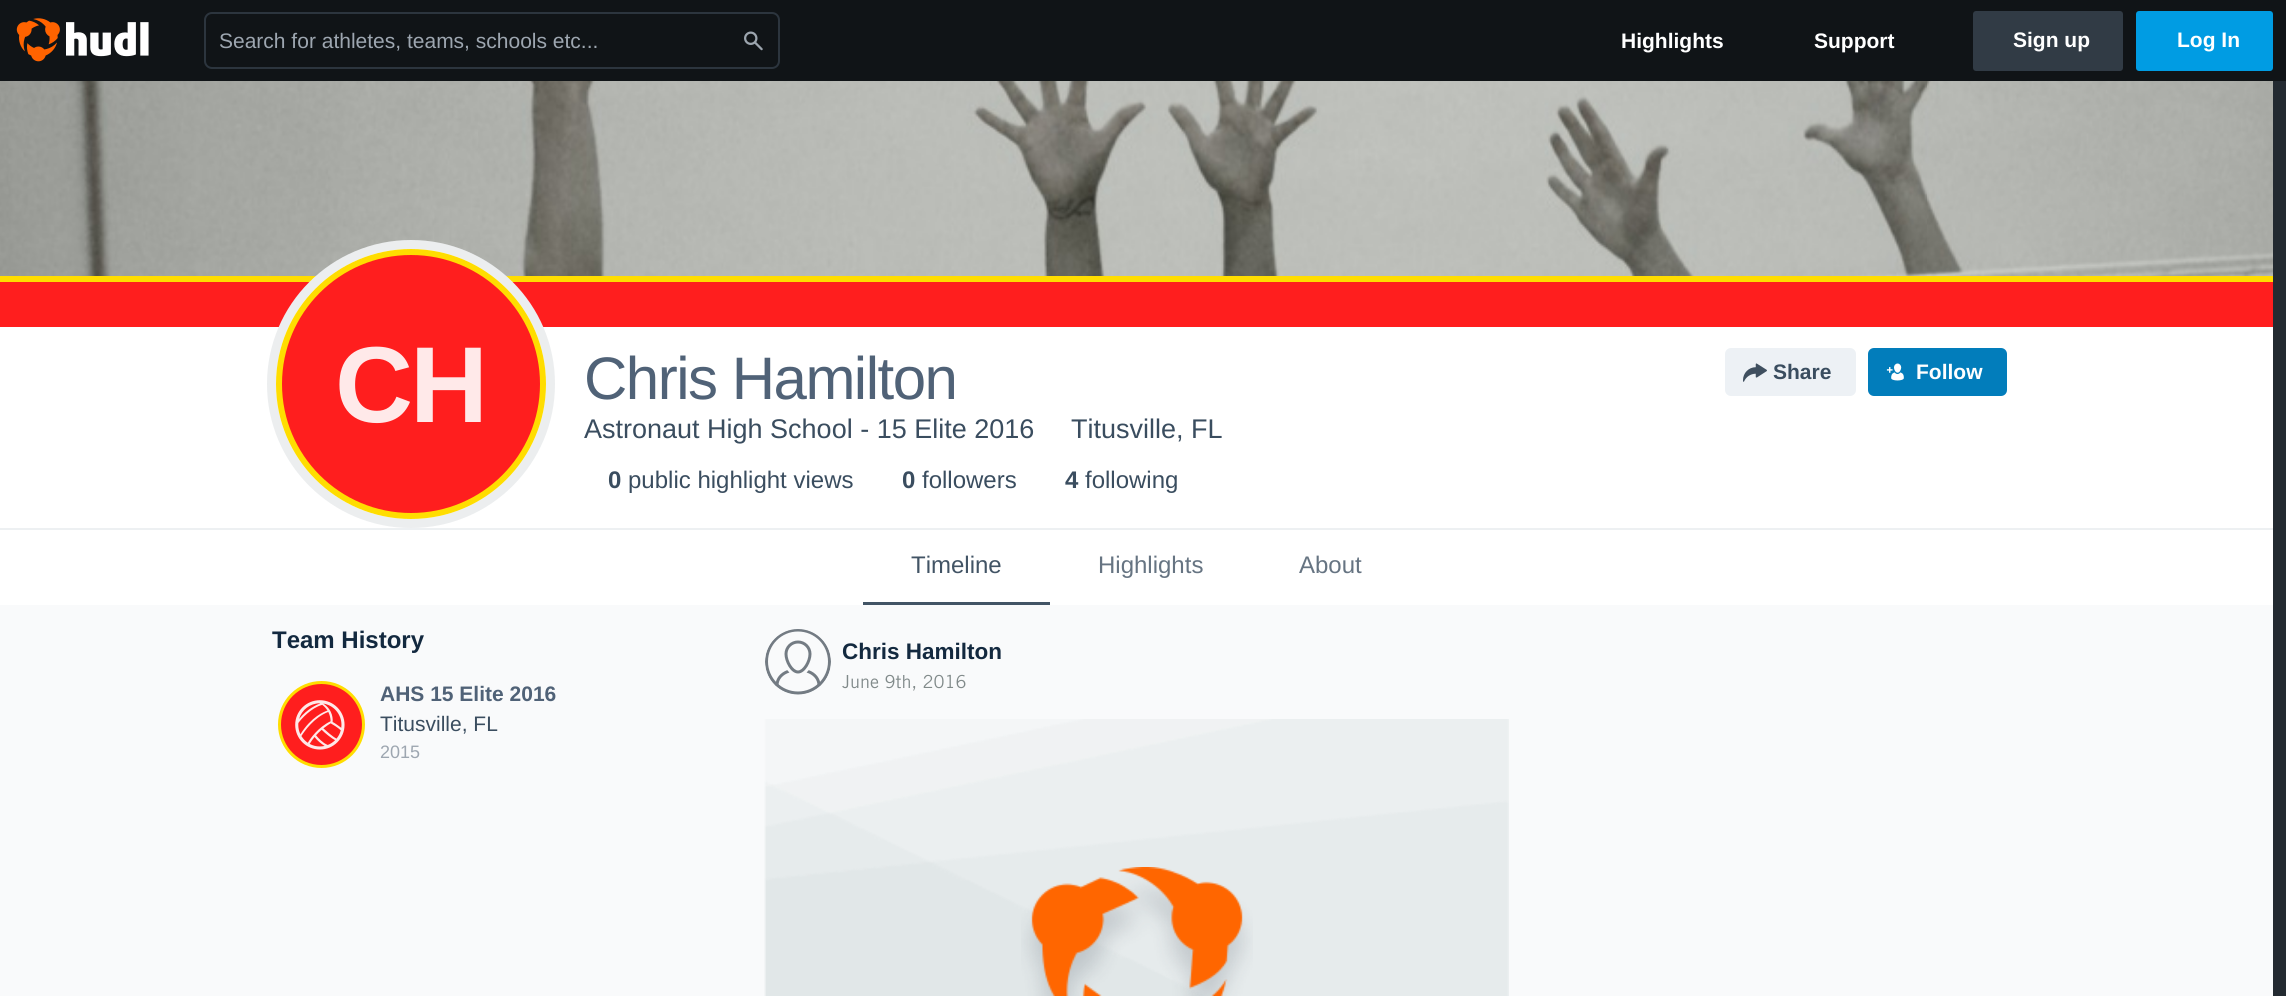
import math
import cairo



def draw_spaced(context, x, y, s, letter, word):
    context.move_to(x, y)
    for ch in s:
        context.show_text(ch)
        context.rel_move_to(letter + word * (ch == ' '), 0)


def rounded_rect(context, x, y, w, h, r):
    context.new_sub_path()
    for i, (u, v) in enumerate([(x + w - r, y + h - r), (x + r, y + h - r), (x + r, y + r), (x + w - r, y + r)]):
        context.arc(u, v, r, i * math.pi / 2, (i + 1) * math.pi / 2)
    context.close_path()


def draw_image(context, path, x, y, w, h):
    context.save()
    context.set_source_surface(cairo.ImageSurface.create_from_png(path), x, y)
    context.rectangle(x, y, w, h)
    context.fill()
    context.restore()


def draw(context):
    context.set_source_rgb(35 / 255, 42 / 255, 49 / 255)
    context.paint()
    context.set_source_rgb(16 / 255, 20 / 255, 23 / 255)
    context.rectangle(0, 0, 2286, 81)
    context.fill()
    draw_image(context, "images/1.png", 16, 18, 133, 44)
    rounded_rect(context, 205, 13, 574, 55, 7)
    context.set_source_rgb(44 / 255, 53 / 255, 62 / 255)
    context.stroke()
    draw_image(context, "images/2.png", 744, 31, 19, 20)
    context.set_source_rgb(49 / 255, 59 / 255, 69 / 255)
    rounded_rect(context, 1975.5, 13.5, 145, 55, 0.5)
    context.fill_preserve()
    context.set_line_width(5)
    context.stroke()
    context.set_source_rgb(0, 156 / 255, 227 / 255)
    rounded_rect(context, 2138.5, 13.5, 132, 55, 0.5)
    context.fill_preserve()
    context.stroke()
    draw_image(context, "images/3.png", 0, 81, 2273, 195)
    gradient = cairo.LinearGradient(1136, 276, 1136, 528)
    gradient.add_color_stop_rgba(0, 1, 1, 1, 0.85)
    gradient.add_color_stop_rgba(0.2, 1, 1, 1, 1)
    context.set_source(gradient)
    context.rectangle(0, 327, 2273, 201)
    context.fill()
    context.set_source_rgb(237 / 255, 240 / 255, 242 / 255)
    context.rectangle(0, 528, 2273, 2)
    context.fill()
    context.set_source_rgb(1, 221 / 255, 0)
    context.rectangle(0, 276, 2273, 6)
    context.fill()
    context.set_source_rgb(1, 30 / 255, 30 / 255)
    context.rectangle(0, 282, 2273, 45)
    context.fill()
    context.set_source_rgb(1, 1, 1)
    context.arc(411, 384, 144, 0, 2 * math.pi)
    context.fill()
    context.arc(411, 384, 139.5, 0, 2 * math.pi)
    context.set_source_rgba(69 / 255, 82 / 255, 94 / 255, 0.1)
    context.set_line_width(9)
    context.stroke()
    context.set_source_rgb(1, 30 / 255, 30 / 255)
    context.arc(411, 384, 132, 0, 2 * math.pi)
    context.fill_preserve()
    context.set_source_rgb(1, 221 / 255, 0)
    context.set_line_width(6)
    context.stroke()
    context.set_source_rgb(237 / 255, 241 / 255, 245 / 255)
    rounded_rect(context, 1725, 348, 131, 48, 6)
    context.fill()
    draw_image(context, "images/4.png", 1743, 363, 24, 19)
    context.set_source_rgb(2 / 255, 125 / 255, 187 / 255)
    rounded_rect(context, 1868, 348, 139, 48, 6)
    context.fill()
    draw_image(context, "images/5.png", 1886, 363, 18, 18)
    context.set_source_rgb(1, 1, 1)
    context.rectangle(0, 530, 2273, 75)
    context.fill()
    context.set_source_rgb(66 / 255, 84 / 255, 101 / 255)
    context.rectangle(863, 602, 187, 3)
    context.fill()
    context.set_source_rgb(249 / 255, 250 / 255, 251 / 255)
    context.rectangle(0, 605, 2273, 391)
    context.fill()
    context.set_source_rgb(1, 30 / 255, 30 / 255)
    context.arc(321.5, 724.5, 42, 0, 2 * math.pi)
    context.fill_preserve()
    context.set_source_rgb(1, 221 / 255, 0)
    context.set_line_width(3)
    context.stroke()
    draw_image(context, "images/6.png", 295, 700, 50, 50)
    draw_image(context, "images/7.png", 765, 629, 66, 66)
    draw_image(context, "images/8.png", 764, 719, 745, 277)
    draw_image(context, "images/9.png", 1021, 867, 232, 129)
    context.select_font_face("Liberation Sans")
    context.set_font_size(21)
    context.set_source_rgb(157 / 255, 166 / 255, 176 / 255)
    context.move_to(219, 48)
    context.show_text("Search for athletes, teams, schools etc...")
    context.select_font_face("Liberation Sans", cairo.FontSlant.NORMAL, cairo.FontWeight.BOLD)
    context.set_source_rgb(1, 1, 1)
    context.move_to(1621, 48)
    context.show_text("Highlights")
    context.move_to(1814, 48)
    context.show_text("Support")
    context.move_to(2013, 47)
    context.show_text("Sign up")
    context.move_to(2177, 47)
    context.show_text("Log In")
    context.set_font_size(108)
    context.set_source_rgb(1, 233 / 255, 233 / 255)
    draw_spaced(context, 335, 422, "CH", -3, 0)
    context.select_font_face("Liberation Sans")
    context.set_font_size(60)
    context.set_source_rgb(80 / 255, 98 / 255, 119 / 255)
    draw_spaced(context, 584, 399, "Chris Hamilton", -1.5, 0)
    context.select_font_face("Liberation Sans", cairo.FontSlant.NORMAL, cairo.FontWeight.BOLD)
    context.set_font_size(21)
    context.set_source_rgb(58 / 255, 77 / 255, 95 / 255)
    context.move_to(1773, 379)
    context.show_text("Share")
    context.set_source_rgb(1, 1, 1)
    context.move_to(1916, 379)
    context.show_text("Follow")
    context.select_font_face("Liberation Sans")
    context.set_font_size(27)
    context.set_source_rgb(58 / 255, 77 / 255, 95 / 255)
    context.move_to(584, 438)
    context.show_text("Astronaut High School - 15 Elite 2016")
    context.move_to(1071, 438)
    context.show_text("Titusville, FL")
    context.select_font_face("Liberation Sans", cairo.FontSlant.NORMAL, cairo.FontWeight.BOLD)
    context.set_font_size(24)
    context.move_to(608, 488)
    context.show_text("0")
    context.select_font_face("Liberation Sans")
    context.move_to(628, 488)
    context.show_text("public highlight views")
    context.select_font_face("Liberation Sans", cairo.FontSlant.NORMAL, cairo.FontWeight.BOLD)
    context.move_to(902, 488)
    context.show_text("0")
    context.select_font_face("Liberation Sans")
    context.move_to(922, 488)
    context.show_text("followers")
    context.select_font_face("Liberation Sans", cairo.FontSlant.NORMAL, cairo.FontWeight.BOLD)
    context.move_to(1065, 488)
    context.show_text("4")
    context.select_font_face("Liberation Sans")
    context.move_to(1085, 488)
    context.show_text("following")
    context.set_source_rgb(66 / 255, 84 / 255, 101 / 255)
    context.move_to(911, 573)
    context.show_text("Timeline")
    context.set_source_rgb(102 / 255, 116 / 255, 130 / 255)
    context.move_to(1098, 573)
    context.show_text("Highlights")
    context.move_to(1299, 573)
    context.show_text("About")
    context.select_font_face("Liberation Sans", cairo.FontSlant.NORMAL, cairo.FontWeight.BOLD)
    context.set_source_rgb(19 / 255, 41 / 255, 63 / 255)
    context.move_to(272, 648)
    context.show_text("Team History")
    context.set_font_size(21)
    context.set_source_rgb(80 / 255, 98 / 255, 119 / 255)
    context.move_to(380, 701)
    context.show_text("AHS 15 Elite 2016")
    context.select_font_face("Liberation Sans")
    context.set_source_rgb(58 / 255, 77 / 255, 95 / 255)
    context.move_to(380, 731)
    context.show_text("Titusville, FL")
    context.set_font_size(18)
    context.set_source_rgb(157 / 255, 166 / 255, 176 / 255)
    context.move_to(380, 758)
    context.show_text("2015")
    context.select_font_face("Liberation Sans", cairo.FontSlant.NORMAL, cairo.FontWeight.BOLD)
    context.set_font_size(22.5)
    context.set_source_rgb(19 / 255, 41 / 255, 63 / 255)
    context.move_to(842, 659)
    context.show_text("Chris Hamilton")
    context.select_font_face("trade")
    context.set_font_size(18)
    context.set_source_rgb(129 / 255, 138 / 255, 138 / 255)
    context.move_to(842, 688)
    context.show_text("June 9th, 2016")


surface = cairo.ImageSurface(cairo.Format.RGB24, 2286, 996)
context = cairo.Context(surface)
options = cairo.FontOptions()
options.set_hint_metrics(cairo.HintMetrics.OFF)
options.set_hint_style(cairo.HintStyle.NONE)
context.set_font_options(options)
context.set_miter_limit(4)
draw(context)
surface.write_to_png("out.png")
